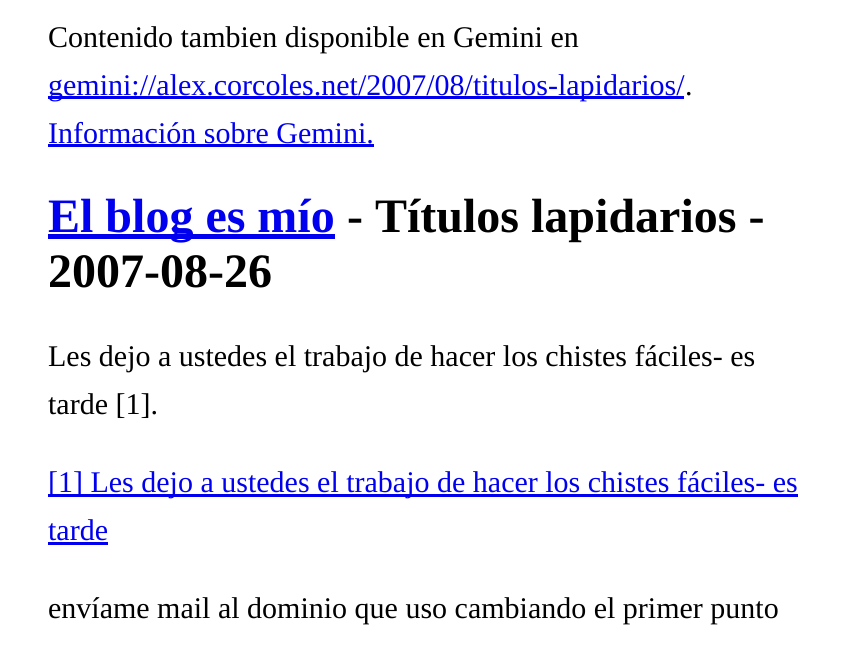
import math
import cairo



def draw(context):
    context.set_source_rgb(1, 1, 1)
    context.paint()
    context.set_source_rgb(0, 0, 238 / 255)
    context.rectangle(48, 96, 636, 3)
    context.fill()
    context.rectangle(48, 144, 326, 3)
    context.fill()
    context.rectangle(48, 234, 287, 5)
    context.fill()
    context.rectangle(48, 494, 750, 3)
    context.fill()
    context.rectangle(48, 542, 60, 3)
    context.fill()
    context.select_font_face("Liberation Serif")
    context.set_font_size(30)
    context.set_source_rgb(0, 0, 0)
    context.move_to(48, 47)
    context.show_text("Contenido tambien disponible en Gemini en")
    context.set_source_rgb(0, 0, 238 / 255)
    context.move_to(48, 95)
    context.show_text("gemini://alex.corcoles.net/2007/08/titulos-lapidarios/")
    context.set_source_rgb(0, 0, 0)
    context.move_to(685, 95)
    context.show_text(".")
    context.set_source_rgb(0, 0, 238 / 255)
    context.move_to(48, 143)
    context.show_text("Información sobre Gemini.")
    context.select_font_face("Liberation Serif", cairo.FontSlant.NORMAL, cairo.FontWeight.BOLD)
    context.set_font_size(48)
    context.move_to(48, 232)
    context.show_text("El blog es mío")
    context.set_source_rgb(0, 0, 0)
    context.move_to(347, 232)
    context.show_text("- Títulos lapidarios -")
    context.move_to(48, 287)
    context.show_text("2007-08-26")
    context.select_font_face("Liberation Serif")
    context.set_font_size(30)
    context.move_to(48, 366)
    context.show_text("Les dejo a ustedes el trabajo de hacer los chistes fáciles- es")
    context.move_to(48, 414)
    context.show_text("tarde [1].")
    context.set_source_rgb(0, 0, 238 / 255)
    context.move_to(48, 492)
    context.show_text("[1] Les dejo a ustedes el trabajo de hacer los chistes fáciles- es")
    context.move_to(48, 540)
    context.show_text("tarde")
    context.set_source_rgb(0, 0, 0)
    context.move_to(48, 618)
    context.show_text("envíame mail al dominio que uso cambiando el primer punto")


surface = cairo.ImageSurface(cairo.Format.RGB24, 854, 657)
context = cairo.Context(surface)
options = cairo.FontOptions()
options.set_hint_metrics(cairo.HintMetrics.OFF)
options.set_hint_style(cairo.HintStyle.NONE)
context.set_font_options(options)
context.set_miter_limit(4)
draw(context)
surface.write_to_png("out.png")
